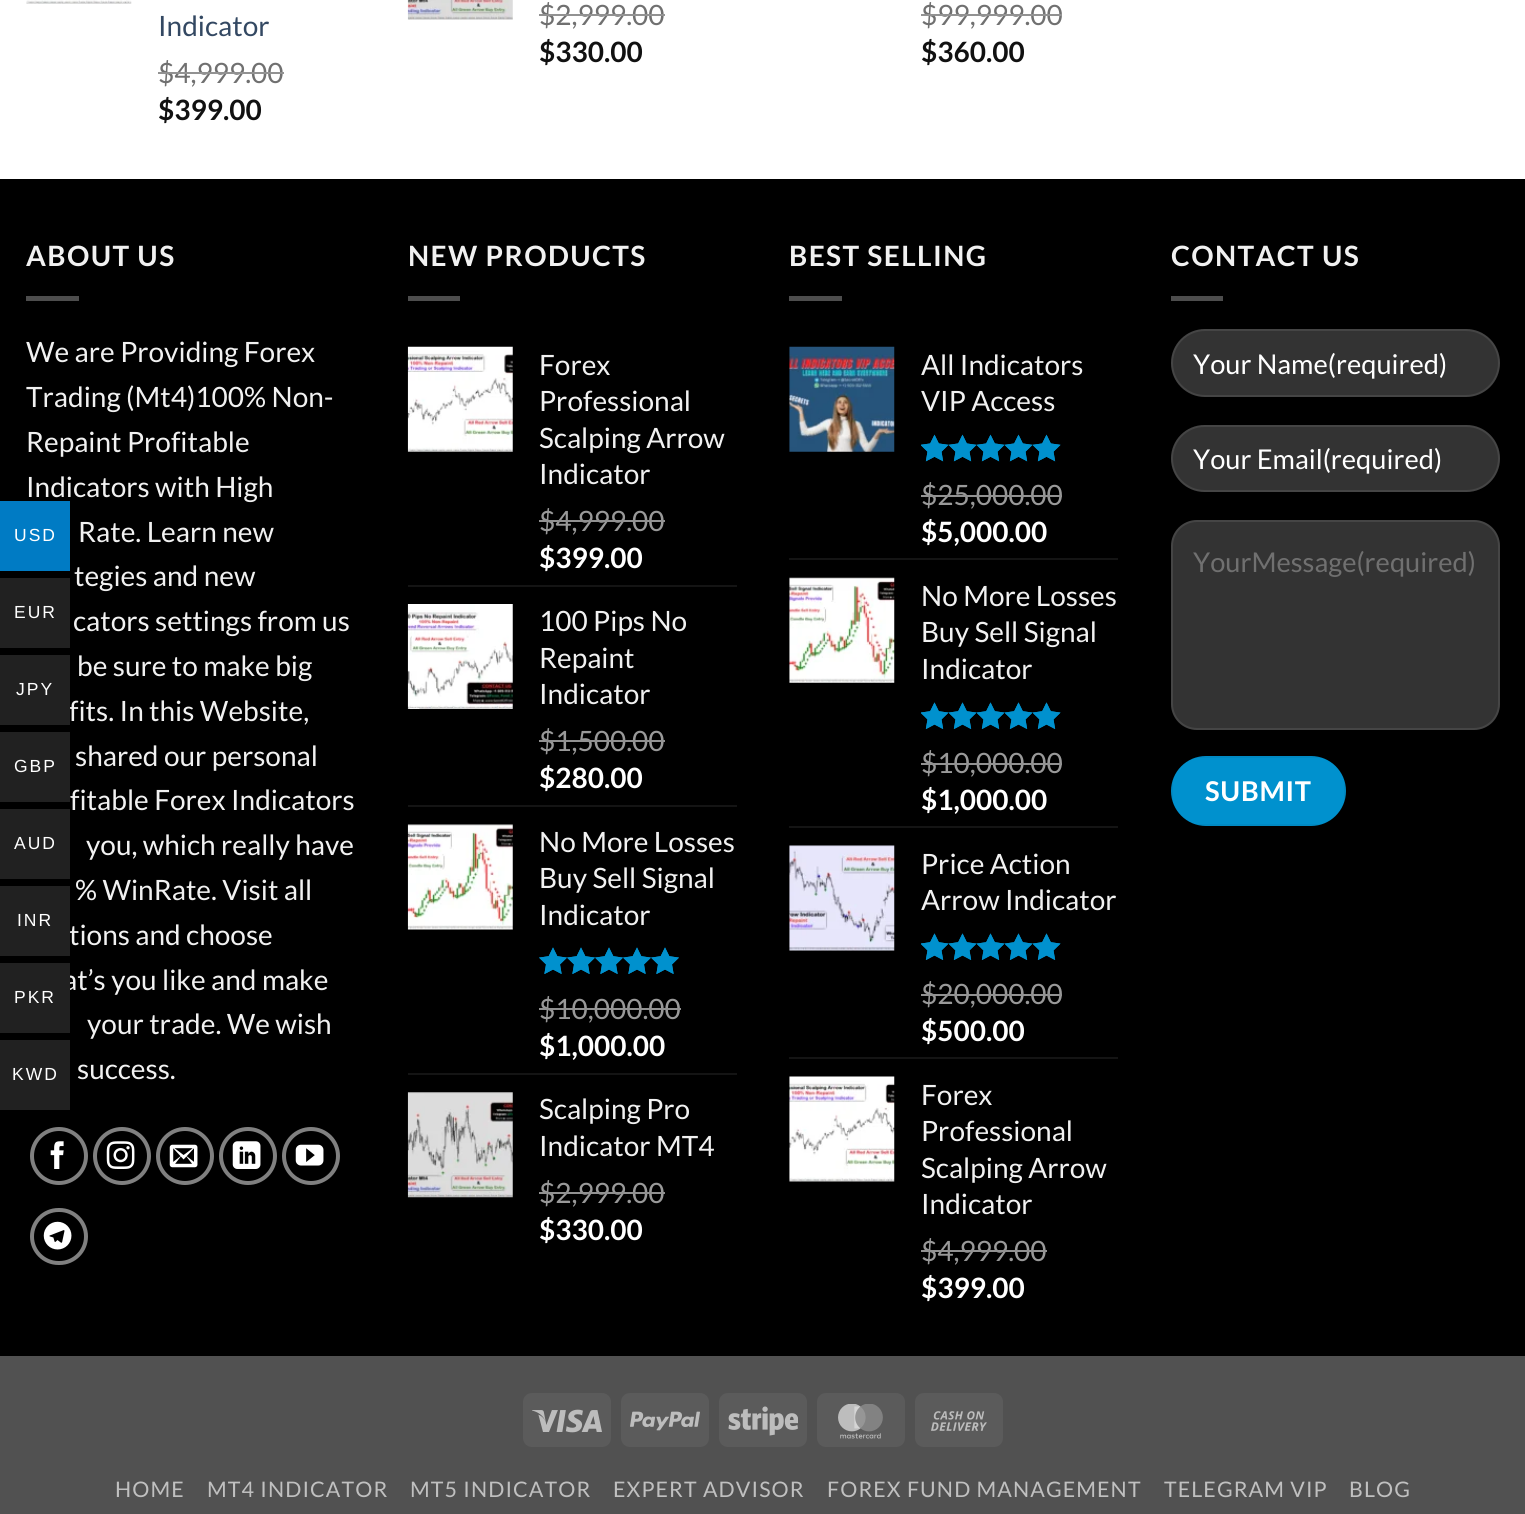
import math
import cairo



def draw_spaced(context, x, y, s, letter, word):
    context.move_to(x, y)
    for ch in s:
        context.show_text(ch)
        context.rel_move_to(letter + word * (ch == ' '), 0)


def rounded_rect(context, x, y, w, h, r):
    context.new_sub_path()
    for i, (u, v) in enumerate([(x + w - r, y + h - r), (x + r, y + h - r), (x + r, y + r), (x + w - r, y + r)]):
        context.arc(u, v, r, i * math.pi / 2, (i + 1) * math.pi / 2)
    context.close_path()


def draw_image(context, path, x, y, w, h):
    context.save()
    context.set_source_surface(cairo.ImageSurface.create_from_png(path), x, y)
    context.rectangle(x, y, w, h)
    context.fill()
    context.restore()


def draw(context):
    context.set_source_rgb(1, 1, 1)
    context.paint()
    draw_image(context, "images/1.png", 26, 0, 106, 4)
    draw_image(context, "images/2.png", 407, 0, 106, 20)
    context.set_source_rgb(0, 0, 0)
    context.rectangle(0, 179, 1525, 1177)
    context.fill()
    context.set_source_rgb(77 / 255, 77 / 255, 77 / 255)
    context.rectangle(26, 296, 53, 5)
    context.fill()
    context.arc(59, 1156, 27, 0, 2 * math.pi)
    context.set_source_rgb(128 / 255, 128 / 255, 128 / 255)
    context.set_line_width(4)
    context.stroke()
    draw_image(context, "images/3.png", 50, 1141, 14, 28)
    context.arc(122, 1156, 27, 0, 2 * math.pi)
    context.stroke()
    draw_image(context, "images/4.png", 106, 1141, 29, 28)
    context.arc(185, 1156, 27, 0, 2 * math.pi)
    context.stroke()
    draw_image(context, "images/5.png", 169, 1144, 29, 24)
    context.arc(248, 1156, 27, 0, 2 * math.pi)
    context.stroke()
    draw_image(context, "images/6.png", 232, 1141, 29, 28)
    context.arc(311, 1156, 27, 0, 2 * math.pi)
    context.stroke()
    draw_image(context, "images/7.png", 295, 1144, 29, 22)
    rounded_rect(context, 32, 1210, 54, 53, 26.5)
    context.stroke()
    draw_image(context, "images/8.png", 43, 1221, 29, 29)
    context.set_source_rgb(77 / 255, 77 / 255, 77 / 255)
    context.rectangle(408, 296, 52, 5)
    context.fill()
    draw_image(context, "images/9.png", 407, 346, 106, 106)
    context.set_source_rgb(20 / 255, 20 / 255, 20 / 255)
    context.rectangle(408, 585, 329, 2)
    context.fill()
    draw_image(context, "images/10.png", 407, 604, 106, 105)
    context.rectangle(408, 805, 329, 2)
    context.fill()
    draw_image(context, "images/11.png", 407, 824, 106, 106)
    draw_image(context, "images/12.png", 539, 947, 140, 27)
    draw_image(context, "images/13.png", 539, 947, 140, 27)
    context.rectangle(408, 1073, 329, 2)
    context.fill()
    draw_image(context, "images/14.png", 407, 1092, 106, 106)
    context.set_source_rgb(77 / 255, 77 / 255, 77 / 255)
    context.rectangle(789, 296, 53, 5)
    context.fill()
    draw_image(context, "images/15.png", 789, 346, 106, 106)
    draw_image(context, "images/16.png", 921, 434, 140, 28)
    draw_image(context, "images/17.png", 921, 434, 140, 28)
    context.set_source_rgb(20 / 255, 20 / 255, 20 / 255)
    context.rectangle(789, 558, 329, 2)
    context.fill()
    draw_image(context, "images/18.png", 789, 577, 106, 106)
    draw_image(context, "images/19.png", 921, 702, 140, 27)
    draw_image(context, "images/20.png", 921, 702, 140, 27)
    context.rectangle(789, 826, 329, 2)
    context.fill()
    draw_image(context, "images/21.png", 789, 845, 106, 106)
    draw_image(context, "images/19.png", 921, 933, 140, 27)
    draw_image(context, "images/20.png", 921, 933, 140, 27)
    context.rectangle(789, 1057, 329, 2)
    context.fill()
    draw_image(context, "images/22.png", 789, 1076, 106, 106)
    context.set_source_rgb(77 / 255, 77 / 255, 77 / 255)
    context.rectangle(1171, 296, 52, 5)
    context.fill()
    context.set_source_rgb(51 / 255, 51 / 255, 51 / 255)
    rounded_rect(context, 1171, 329, 329, 68, 34)
    context.fill()
    rounded_rect(context, 1172, 330, 327, 66, 33)
    context.set_source_rgba(1, 1, 1, 0.09)
    context.set_line_width(2)
    context.stroke()
    context.set_source_rgb(51 / 255, 51 / 255, 51 / 255)
    rounded_rect(context, 1171, 425, 329, 67, 33.5)
    context.fill()
    rounded_rect(context, 1172, 426, 327, 65, 32.5)
    context.set_source_rgba(1, 1, 1, 0.09)
    context.stroke()
    context.set_source_rgb(51 / 255, 51 / 255, 51 / 255)
    rounded_rect(context, 1171, 520, 329, 210, 26)
    context.fill()
    rounded_rect(context, 1172, 521, 327, 208, 25)
    context.set_source_rgba(1, 1, 1, 0.09)
    context.stroke()
    context.set_source_rgb(0, 145 / 255, 206 / 255)
    rounded_rect(context, 1171, 756, 175, 70, 35)
    context.fill()
    context.rectangle(1172, 757, 173, 68)
    context.set_source_rgba(0, 0, 0, 0.05)
    context.stroke()
    context.set_source_rgb(81 / 255, 81 / 255, 81 / 255)
    context.rectangle(0, 1356, 1525, 158)
    context.fill()
    context.set_source_rgb(91 / 255, 91 / 255, 91 / 255)
    rounded_rect(context, 523, 1393, 88, 54, 9)
    context.fill()
    draw_image(context, "images/23.png", 532, 1409, 70, 24)
    rounded_rect(context, 621, 1393, 88, 54, 9)
    context.fill()
    draw_image(context, "images/24.png", 630, 1411, 70, 20)
    rounded_rect(context, 719, 1393, 88, 54, 9)
    context.fill()
    draw_image(context, "images/25.png", 728, 1406, 70, 30)
    rounded_rect(context, 817, 1393, 88, 54, 9)
    context.fill()
    draw_image(context, "images/26.png", 838, 1404, 45, 35)
    rounded_rect(context, 915, 1393, 88, 54, 9)
    context.fill()
    draw_image(context, "images/27.png", 931, 1411, 56, 20)
    context.set_source_rgb(33 / 255, 33 / 255, 33 / 255)
    context.rectangle(0, 578, 70, 70)
    context.fill()
    context.rectangle(0, 732, 70, 70)
    context.fill()
    context.rectangle(0, 809, 70, 70)
    context.fill()
    context.rectangle(0, 1040, 70, 70)
    context.fill()
    context.select_font_face("Lato")
    context.set_font_size(28)
    context.set_source_rgb(51 / 255, 72 / 255, 98 / 255)
    context.move_to(158, 36)
    context.show_text("Indicator")
    context.set_source_rgb(112 / 255, 112 / 255, 112 / 255)
    context.move_to(158, 83)
    context.show_text("$4,999.00")
    context.set_source_rgb(146 / 255, 146 / 255, 146 / 255)
    context.rectangle(158, 72, 126, 2)
    context.fill()
    context.select_font_face("Lato", cairo.FontSlant.NORMAL, cairo.FontWeight.BOLD)
    context.set_source_rgb(17 / 255, 17 / 255, 17 / 255)
    context.move_to(158, 120)
    context.show_text("$399.00")
    context.select_font_face("Lato")
    context.set_source_rgb(112 / 255, 112 / 255, 112 / 255)
    context.move_to(539, 25)
    context.show_text("$2,999.00")
    context.set_source_rgb(146 / 255, 146 / 255, 146 / 255)
    context.rectangle(539, 14, 126, 2)
    context.fill()
    context.select_font_face("Lato", cairo.FontSlant.NORMAL, cairo.FontWeight.BOLD)
    context.set_source_rgb(17 / 255, 17 / 255, 17 / 255)
    context.move_to(539, 62)
    context.show_text("$330.00")
    context.select_font_face("Lato")
    context.set_source_rgb(112 / 255, 112 / 255, 112 / 255)
    context.move_to(921, 25)
    context.show_text("$99,999.00")
    context.set_source_rgb(146 / 255, 146 / 255, 146 / 255)
    context.rectangle(921, 14, 141, 2)
    context.fill()
    context.select_font_face("Lato", cairo.FontSlant.NORMAL, cairo.FontWeight.BOLD)
    context.set_source_rgb(17 / 255, 17 / 255, 17 / 255)
    context.move_to(921, 62)
    context.show_text("$360.00")
    context.set_source_rgb(241 / 255, 241 / 255, 241 / 255)
    draw_spaced(context, 26, 266, "ABOUT US", 1.4, 0)
    context.select_font_face("Lato")
    context.move_to(26, 362)
    context.show_text("We are Providing Forex")
    context.move_to(26, 407)
    context.show_text("Trading (Mt4)100% Non-")
    context.move_to(26, 452)
    context.show_text("Repaint Profitable")
    context.move_to(26, 497)
    context.show_text("Indicators with High")
    context.move_to(78, 542)
    context.show_text("Rate. Learn new")
    context.move_to(74, 586)
    context.show_text("tegies and new")
    context.move_to(73, 631)
    context.show_text("cators settings from us")
    context.move_to(77, 676)
    context.show_text("be sure to make big")
    context.move_to(69, 721)
    context.show_text("fits. In this Website,")
    context.move_to(75, 766)
    context.show_text("shared our personal")
    context.move_to(70, 810)
    context.show_text("fitable Forex Indicators")
    context.move_to(86, 855)
    context.show_text("you, which really have")
    context.move_to(75, 900)
    context.show_text("% WinRate. Visit all")
    context.move_to(69, 945)
    context.show_text("tions and choose")
    context.move_to(63, 990)
    context.show_text("at’s you like and make")
    context.move_to(87, 1034)
    context.show_text("your trade. We wish")
    context.move_to(77, 1079)
    context.show_text("success.")
    context.select_font_face("Lato", cairo.FontSlant.NORMAL, cairo.FontWeight.BOLD)
    draw_spaced(context, 408, 266, "NEW PRODUCTS", 1.4, 0)
    context.select_font_face("Lato")
    context.move_to(539, 375)
    context.show_text("Forex")
    context.move_to(539, 411)
    context.show_text("Professional")
    context.move_to(539, 448)
    context.show_text("Scalping Arrow")
    context.move_to(539, 484)
    context.show_text("Indicator")
    context.set_source_rgb(153 / 255, 153 / 255, 153 / 255)
    context.move_to(539, 531)
    context.show_text("$4,999.00")
    context.set_source_rgb(145 / 255, 145 / 255, 145 / 255)
    context.rectangle(539, 520, 126, 2)
    context.fill()
    context.select_font_face("Lato", cairo.FontSlant.NORMAL, cairo.FontWeight.BOLD)
    context.set_source_rgb(1, 1, 1)
    context.move_to(539, 568)
    context.show_text("$399.00")
    context.select_font_face("Lato")
    context.set_source_rgb(241 / 255, 241 / 255, 241 / 255)
    context.move_to(539, 631)
    context.show_text("100 Pips No")
    context.move_to(539, 668)
    context.show_text("Repaint")
    context.move_to(539, 704)
    context.show_text("Indicator")
    context.set_source_rgb(153 / 255, 153 / 255, 153 / 255)
    context.move_to(539, 751)
    context.show_text("$1,500.00")
    context.set_source_rgb(145 / 255, 145 / 255, 145 / 255)
    context.rectangle(539, 740, 126, 2)
    context.fill()
    context.select_font_face("Lato", cairo.FontSlant.NORMAL, cairo.FontWeight.BOLD)
    context.set_source_rgb(1, 1, 1)
    context.move_to(539, 788)
    context.show_text("$280.00")
    context.select_font_face("Lato")
    context.set_source_rgb(241 / 255, 241 / 255, 241 / 255)
    context.move_to(539, 852)
    context.show_text("No More Losses")
    context.move_to(539, 888)
    context.show_text("Buy Sell Signal")
    context.move_to(539, 925)
    context.show_text("Indicator")
    context.set_source_rgb(153 / 255, 153 / 255, 153 / 255)
    context.move_to(539, 1019)
    context.show_text("$10,000.00")
    context.set_source_rgb(145 / 255, 145 / 255, 145 / 255)
    context.rectangle(539, 1008, 142, 2)
    context.fill()
    context.select_font_face("Lato", cairo.FontSlant.NORMAL, cairo.FontWeight.BOLD)
    context.set_source_rgb(1, 1, 1)
    context.move_to(539, 1056)
    context.show_text("$1,000.00")
    context.select_font_face("Lato")
    context.set_source_rgb(241 / 255, 241 / 255, 241 / 255)
    context.move_to(539, 1119)
    context.show_text("Scalping Pro")
    context.move_to(539, 1156)
    context.show_text("Indicator MT4")
    context.set_source_rgb(153 / 255, 153 / 255, 153 / 255)
    context.move_to(539, 1203)
    context.show_text("$2,999.00")
    context.set_source_rgb(145 / 255, 145 / 255, 145 / 255)
    context.rectangle(539, 1192, 126, 2)
    context.fill()
    context.select_font_face("Lato", cairo.FontSlant.NORMAL, cairo.FontWeight.BOLD)
    context.set_source_rgb(1, 1, 1)
    context.move_to(539, 1240)
    context.show_text("$330.00")
    context.set_source_rgb(241 / 255, 241 / 255, 241 / 255)
    draw_spaced(context, 789, 266, "BEST SELLING", 1.4, 0)
    context.select_font_face("Lato")
    context.move_to(921, 375)
    context.show_text("All Indicators")
    context.move_to(921, 411)
    context.show_text("VIP Access")
    context.set_source_rgb(153 / 255, 153 / 255, 153 / 255)
    context.move_to(921, 505)
    context.show_text("$25,000.00")
    context.set_source_rgb(145 / 255, 145 / 255, 145 / 255)
    context.rectangle(921, 495, 141, 2)
    context.fill()
    context.select_font_face("Lato", cairo.FontSlant.NORMAL, cairo.FontWeight.BOLD)
    context.set_source_rgb(1, 1, 1)
    context.move_to(921, 542)
    context.show_text("$5,000.00")
    context.select_font_face("Lato")
    context.set_source_rgb(241 / 255, 241 / 255, 241 / 255)
    context.move_to(921, 606)
    context.show_text("No More Losses")
    context.move_to(921, 642)
    context.show_text("Buy Sell Signal")
    context.move_to(921, 679)
    context.show_text("Indicator")
    context.set_source_rgb(153 / 255, 153 / 255, 153 / 255)
    context.move_to(921, 773)
    context.show_text("$10,000.00")
    context.set_source_rgb(145 / 255, 145 / 255, 145 / 255)
    context.rectangle(921, 763, 141, 2)
    context.fill()
    context.select_font_face("Lato", cairo.FontSlant.NORMAL, cairo.FontWeight.BOLD)
    context.set_source_rgb(1, 1, 1)
    context.move_to(921, 810)
    context.show_text("$1,000.00")
    context.select_font_face("Lato")
    context.set_source_rgb(241 / 255, 241 / 255, 241 / 255)
    context.move_to(921, 874)
    context.show_text("Price Action")
    context.move_to(921, 910)
    context.show_text("Arrow Indicator")
    context.set_source_rgb(153 / 255, 153 / 255, 153 / 255)
    context.move_to(921, 1004)
    context.show_text("$20,000.00")
    context.set_source_rgb(145 / 255, 145 / 255, 145 / 255)
    context.rectangle(921, 994, 141, 2)
    context.fill()
    context.select_font_face("Lato", cairo.FontSlant.NORMAL, cairo.FontWeight.BOLD)
    context.set_source_rgb(1, 1, 1)
    context.move_to(921, 1041)
    context.show_text("$500.00")
    context.select_font_face("Lato")
    context.set_source_rgb(241 / 255, 241 / 255, 241 / 255)
    context.move_to(921, 1105)
    context.show_text("Forex")
    context.move_to(921, 1141)
    context.show_text("Professional")
    context.move_to(921, 1178)
    context.show_text("Scalping Arrow")
    context.move_to(921, 1214)
    context.show_text("Indicator")
    context.set_source_rgb(153 / 255, 153 / 255, 153 / 255)
    context.move_to(921, 1261)
    context.show_text("$4,999.00")
    context.set_source_rgb(145 / 255, 145 / 255, 145 / 255)
    context.rectangle(921, 1250, 126, 2)
    context.fill()
    context.select_font_face("Lato", cairo.FontSlant.NORMAL, cairo.FontWeight.BOLD)
    context.set_source_rgb(1, 1, 1)
    context.move_to(921, 1298)
    context.show_text("$399.00")
    context.set_source_rgb(241 / 255, 241 / 255, 241 / 255)
    draw_spaced(context, 1171, 266, "CONTACT US", 1.4, 0)
    context.select_font_face("Lato")
    context.set_font_size(27.25)
    context.set_source_rgb(1, 1, 1)
    context.move_to(1193, 374)
    context.show_text("Your Name(required)")
    context.move_to(1193, 469)
    context.show_text("Your Email(required)")
    context.set_source_rgb(112 / 255, 112 / 255, 112 / 255)
    context.move_to(1193, 572)
    context.show_text("YourMessage(required)")
    context.select_font_face("Lato", cairo.FontSlant.NORMAL, cairo.FontWeight.BOLD)
    context.set_source_rgb(1, 1, 1)
    draw_spaced(context, 1205, 801, "SUBMIT", 0.75, 0)
    context.select_font_face("Lato")
    context.set_font_size(21.4)
    context.set_source_rgb(192 / 255, 192 / 255, 192 / 255)
    draw_spaced(context, 115, 1497, "HOME", 1.1, 0)
    draw_spaced(context, 207, 1497, "MT4 INDICATOR", 1.1, 0)
    draw_spaced(context, 410, 1497, "MT5 INDICATOR", 1.1, 0)
    draw_spaced(context, 613, 1497, "EXPERT ADVISOR", 1.1, 0)
    draw_spaced(context, 827, 1497, "FOREX FUND MANAGEMENT", 1.1, 0)
    draw_spaced(context, 1164, 1497, "TELEGRAM VIP", 1.1, 0)
    draw_spaced(context, 1349, 1497, "BLOG", 1.1, 0)
    context.set_source_rgb(0, 123 / 255, 196 / 255)
    context.rectangle(0, 501, 70, 70)
    context.fill()
    context.select_font_face("Liberation Sans")
    context.set_font_size(17.5)
    context.set_source_rgb(1, 1, 1)
    draw_spaced(context, 14, 541, "USD", 2, 0)
    draw_spaced(context, 14, 618, "EUR", 2, 0)
    context.set_source_rgb(33 / 255, 33 / 255, 33 / 255)
    context.rectangle(0, 655, 70, 70)
    context.fill()
    context.set_source_rgb(1, 1, 1)
    draw_spaced(context, 16, 695, "JPY", 2, 0)
    draw_spaced(context, 14, 772, "GBP", 2, 0)
    draw_spaced(context, 14, 849, "AUD", 2, 0)
    context.set_source_rgb(33 / 255, 33 / 255, 33 / 255)
    context.rectangle(0, 886, 70, 70)
    context.fill()
    context.set_source_rgb(1, 1, 1)
    draw_spaced(context, 17, 926, "INR", 2, 0)
    context.set_source_rgb(33 / 255, 33 / 255, 33 / 255)
    context.rectangle(0, 963, 70, 70)
    context.fill()
    context.set_source_rgb(1, 1, 1)
    draw_spaced(context, 14, 1003, "PKR", 2, 0)
    draw_spaced(context, 12, 1080, "KWD", 2, 0)


surface = cairo.ImageSurface(cairo.Format.RGB24, 1525, 1514)
context = cairo.Context(surface)
options = cairo.FontOptions()
options.set_hint_metrics(cairo.HintMetrics.OFF)
options.set_hint_style(cairo.HintStyle.NONE)
context.set_font_options(options)
context.set_miter_limit(4)
draw(context)
surface.write_to_png("out.png")
